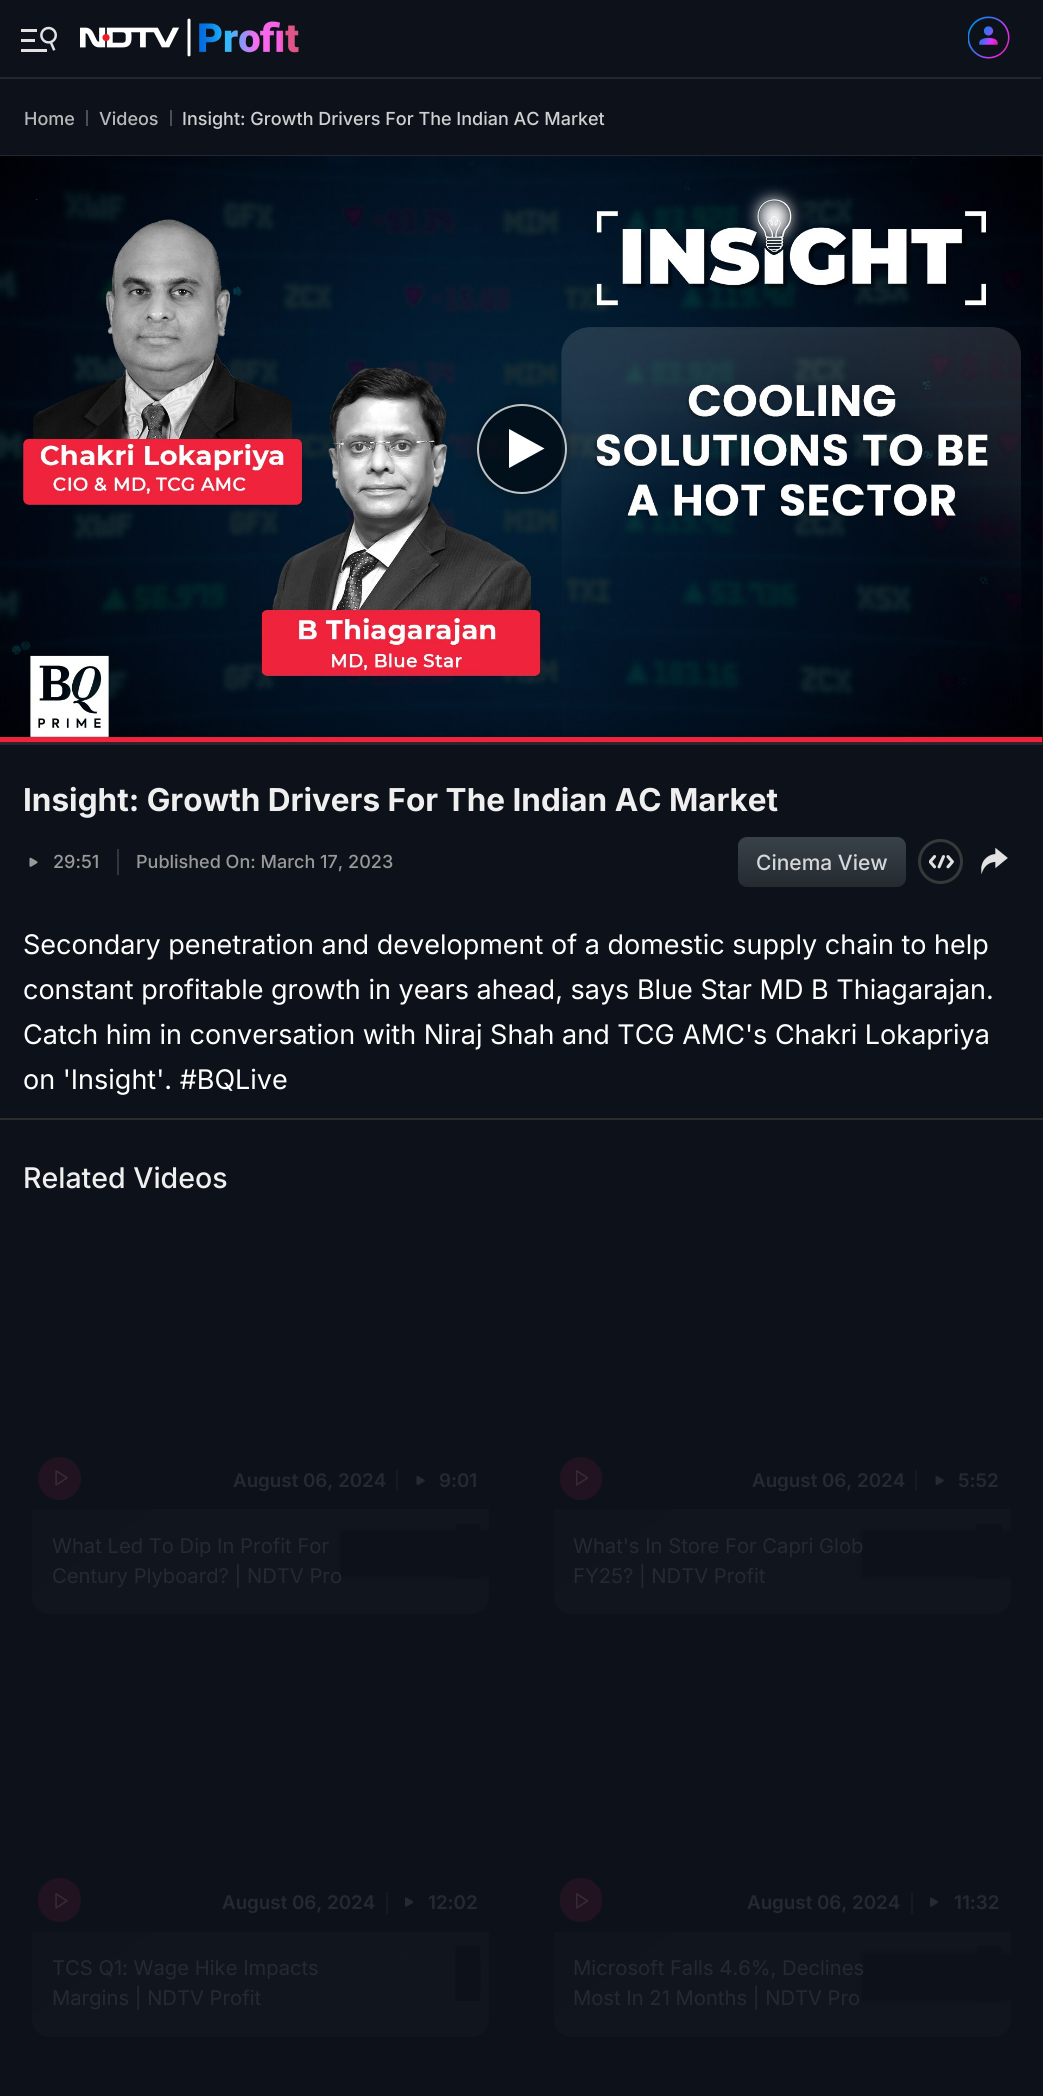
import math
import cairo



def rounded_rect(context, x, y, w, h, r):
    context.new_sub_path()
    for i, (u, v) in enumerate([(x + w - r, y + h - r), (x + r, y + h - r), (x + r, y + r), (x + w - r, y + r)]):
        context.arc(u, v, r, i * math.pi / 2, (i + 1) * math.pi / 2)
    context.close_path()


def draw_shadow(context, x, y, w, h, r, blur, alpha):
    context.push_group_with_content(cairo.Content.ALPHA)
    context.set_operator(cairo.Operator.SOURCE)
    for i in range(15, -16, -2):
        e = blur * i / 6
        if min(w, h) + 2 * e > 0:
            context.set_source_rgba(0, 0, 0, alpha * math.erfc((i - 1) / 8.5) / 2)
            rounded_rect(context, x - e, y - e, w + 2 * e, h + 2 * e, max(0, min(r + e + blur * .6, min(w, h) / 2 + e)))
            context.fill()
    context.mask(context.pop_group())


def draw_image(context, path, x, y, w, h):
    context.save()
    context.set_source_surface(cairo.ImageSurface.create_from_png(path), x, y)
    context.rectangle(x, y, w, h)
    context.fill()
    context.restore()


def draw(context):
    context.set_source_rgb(13 / 255, 18 / 255, 26 / 255)
    context.paint()
    context.set_source_rgb(33 / 255, 40 / 255, 51 / 255)
    context.rectangle(0, 77, 1041, 2)
    context.fill()
    draw_image(context, "images/1.png", 21, 26, 36, 26)
    draw_image(context, "images/2.png", 80, 18, 219, 39)
    draw_image(context, "images/3.png", 968, 16, 42, 43)
    context.set_source_rgb(77 / 255, 79 / 255, 84 / 255)
    context.rectangle(86, 110, 2, 16)
    context.fill()
    context.rectangle(170, 110, 2, 16)
    context.fill()
    context.set_source_rgb(45 / 255, 45 / 255, 45 / 255)
    context.rectangle(0, 1118, 1043, 2)
    context.fill()
    context.set_source_rgb(20 / 255, 22 / 255, 23 / 255)
    context.rectangle(0, 157, 1043, 586)
    context.fill()
    context.set_source_rgb(33 / 255, 40 / 255, 51 / 255)
    context.rectangle(0, 155, 1043, 2)
    context.fill()
    context.rectangle(0, 743, 1043, 2)
    context.fill()
    context.rectangle(1, 157, 1041, 585)
    context.set_source_rgba(44 / 255, 58 / 255, 74 / 255, 0.1)
    context.stroke()
    draw_image(context, "images/4.png", 0, 156, 1043, 587)
    context.save()
    context.set_fill_rule(cairo.FillRule.EVEN_ODD)
    context.new_path()
    context.move_to(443, 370)
    context.line_to(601, 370)
    context.line_to(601, 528)
    context.line_to(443, 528)
    context.close_path()
    context.move_to(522, 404)
    context.curve_to(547, 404, 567, 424, 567, 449)
    context.curve_to(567, 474, 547, 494, 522, 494)
    context.curve_to(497, 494, 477, 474, 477, 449)
    context.curve_to(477, 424, 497, 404, 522, 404)
    context.close_path()
    context.clip()
    context.set_source_rgb(0, 0, 0)
    draw_shadow(context, 477, 404, 90, 90, 45, 11, 0.35)
    context.restore()
    context.set_source_rgba(0, 0, 0, 0.5)
    context.arc(522, 449, 45, 0, 2 * math.pi)
    context.fill()
    context.arc(522, 449, 44, 0, 2 * math.pi)
    context.set_source_rgba(1, 1, 1, 0.75)
    context.stroke()
    context.set_source_rgb(1, 1, 1)
    context.new_path()
    context.move_to(509, 468)
    context.line_to(509, 429)
    context.line_to(544.5, 448.5)
    context.close_path()
    context.fill()
    context.set_source_rgb(50 / 255, 54 / 255, 61 / 255)
    context.rectangle(117, 849, 2, 26)
    context.fill()
    draw_image(context, "images/5.png", 29, 857, 9, 10)
    gradient = cairo.LinearGradient(822, 887, 822, 837)
    gradient.add_color_stop_rgba(0, 36 / 255, 42 / 255, 48 / 255, 1)
    gradient.add_color_stop_rgba(1, 58 / 255, 66 / 255, 73 / 255, 1)
    context.set_source(gradient)
    rounded_rect(context, 738, 837, 168, 50, 9)
    context.fill()
    context.arc(940.5, 861.5, 21, 0, 2 * math.pi)
    context.set_source_rgb(53 / 255, 57 / 255, 57 / 255)
    context.set_line_width(3)
    context.stroke()
    draw_image(context, "images/6.png", 929, 855, 25, 14)
    draw_image(context, "images/7.png", 981, 848, 27, 27)
    gradient = cairo.LinearGradient(100, 1205, 421, 1663)
    gradient.add_color_stop_rgba(0, 15 / 255, 20 / 255, 29 / 255, 1)
    gradient.add_color_stop_rgba(1, 16 / 255, 21 / 255, 30 / 255, 1)
    context.set_source(gradient)
    rounded_rect(context, 32, 1253, 457, 361, 18)
    context.fill()
    context.set_source_rgb(13 / 255, 18 / 255, 26 / 255)
    context.new_path()
    context.move_to(44, 1253)
    context.line_to(477, 1253)
    context.curve_to(483.5, 1253, 489, 1258.5, 489, 1265)
    context.line_to(489, 1509)
    context.line_to(32, 1509)
    context.line_to(32, 1265)
    context.curve_to(32, 1258.5, 37.5, 1253, 44, 1253)
    context.close_path()
    context.fill()
    context.set_source_rgb(33 / 255, 19 / 255, 32 / 255)
    context.arc(59.5, 1478.5, 21.5, 0, 2 * math.pi)
    context.fill()
    draw_image(context, "images/8.png", 55, 1470, 13, 16)
    context.set_source_rgb(21 / 255, 26 / 255, 33 / 255)
    context.rectangle(396, 1470, 2, 21)
    context.fill()
    draw_image(context, "images/9.png", 416, 1476, 9, 9)
    draw_image(context, "images/10.png", 405, 1531, 1, 3)
    context.set_source_rgb(13 / 255, 18 / 255, 26 / 255)
    draw_shadow(context, 339, 1530, 257, 48, 3, 1.5, 1)
    context.set_source_rgb(13 / 255, 18 / 255, 26 / 255)
    context.new_path()
    context.move_to(456, 1524)
    context.line_to(480, 1524)
    context.line_to(480, 1527)
    context.line_to(481, 1551)
    context.line_to(480, 1576)
    context.line_to(480, 1579)
    context.line_to(456, 1579)
    context.line_to(455, 1573)
    context.line_to(455, 1531)
    context.close_path()
    context.fill()
    gradient = cairo.LinearGradient(622, 1205, 942, 1663)
    gradient.add_color_stop_rgba(0, 15 / 255, 20 / 255, 29 / 255, 1)
    gradient.add_color_stop_rgba(1, 16 / 255, 21 / 255, 30 / 255, 1)
    context.set_source(gradient)
    rounded_rect(context, 554, 1253, 457, 361, 18)
    context.fill()
    context.set_source_rgb(13 / 255, 18 / 255, 26 / 255)
    context.new_path()
    context.move_to(566, 1253)
    context.line_to(999, 1253)
    context.curve_to(1005.5, 1253, 1011, 1258.5, 1011, 1265)
    context.line_to(1011, 1509)
    context.line_to(554, 1509)
    context.line_to(554, 1265)
    context.curve_to(554, 1258.5, 559.5, 1253, 566, 1253)
    context.close_path()
    context.fill()
    context.set_source_rgb(33 / 255, 19 / 255, 32 / 255)
    rounded_rect(context, 560, 1457, 42, 43, 21)
    context.fill()
    draw_image(context, "images/11.png", 576, 1470, 13, 16)
    context.set_source_rgb(21 / 255, 26 / 255, 33 / 255)
    context.rectangle(915, 1470, 2, 21)
    context.fill()
    draw_image(context, "images/12.png", 935, 1476, 9, 9)
    draw_image(context, "images/10.png", 927, 1531, 1, 3)
    context.set_source_rgb(13 / 255, 18 / 255, 26 / 255)
    draw_shadow(context, 861, 1530, 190, 48, 3, 1.5, 1)
    context.set_source_rgb(13 / 255, 18 / 255, 26 / 255)
    context.new_path()
    context.move_to(977, 1524)
    context.line_to(1001, 1524)
    context.line_to(1002, 1527)
    context.line_to(1002, 1551)
    context.line_to(1002, 1576)
    context.line_to(1001, 1579)
    context.line_to(977, 1579)
    context.line_to(976, 1573)
    context.line_to(976, 1531)
    context.close_path()
    context.fill()
    gradient = cairo.LinearGradient(100, 1627, 421, 2085)
    gradient.add_color_stop_rgba(0, 15 / 255, 20 / 255, 29 / 255, 1)
    gradient.add_color_stop_rgba(1, 16 / 255, 21 / 255, 30 / 255, 1)
    context.set_source(gradient)
    rounded_rect(context, 32, 1676, 457, 361, 18)
    context.fill()
    context.set_source_rgb(13 / 255, 18 / 255, 26 / 255)
    context.new_path()
    context.move_to(44, 1676)
    context.line_to(477, 1676)
    context.curve_to(483.5, 1676, 489, 1681.5, 489, 1688)
    context.line_to(489, 1932)
    context.line_to(32, 1932)
    context.line_to(32, 1688)
    context.curve_to(32, 1681.5, 37.5, 1676, 44, 1676)
    context.close_path()
    context.fill()
    context.set_source_rgb(33 / 255, 19 / 255, 32 / 255)
    rounded_rect(context, 38, 1878, 43, 44, 21.5)
    context.fill()
    draw_image(context, "images/13.png", 55, 1893, 13, 16)
    context.set_source_rgb(21 / 255, 26 / 255, 33 / 255)
    context.rectangle(386, 1892, 2, 22)
    context.fill()
    draw_image(context, "images/14.png", 405, 1897, 8, 10)
    draw_image(context, "images/15.png", 405, 1954, 1, 3)
    context.set_source_rgb(13 / 255, 18 / 255, 26 / 255)
    context.new_path()
    context.move_to(456, 1946)
    context.line_to(480, 1946)
    context.line_to(480, 1950)
    context.line_to(481, 1974)
    context.line_to(480, 1998)
    context.line_to(480, 2001)
    context.line_to(456, 2001)
    context.line_to(455, 1994)
    context.line_to(455, 1952)
    context.close_path()
    context.fill()
    gradient = cairo.LinearGradient(622, 1627, 942, 2085)
    gradient.add_color_stop_rgba(0, 15 / 255, 20 / 255, 29 / 255, 1)
    gradient.add_color_stop_rgba(1, 16 / 255, 21 / 255, 30 / 255, 1)
    context.set_source(gradient)
    rounded_rect(context, 554, 1676, 457, 361, 18)
    context.fill()
    context.set_source_rgb(13 / 255, 18 / 255, 26 / 255)
    context.new_path()
    context.move_to(566, 1676)
    context.line_to(999, 1676)
    context.curve_to(1005.5, 1676, 1011, 1681.5, 1011, 1688)
    context.line_to(1011, 1932)
    context.line_to(554, 1932)
    context.line_to(554, 1688)
    context.curve_to(554, 1681.5, 559.5, 1676, 566, 1676)
    context.close_path()
    context.fill()
    context.set_source_rgb(33 / 255, 19 / 255, 32 / 255)
    rounded_rect(context, 560, 1878, 42, 44, 21)
    context.fill()
    draw_image(context, "images/16.png", 576, 1893, 13, 16)
    context.set_source_rgb(21 / 255, 26 / 255, 33 / 255)
    context.rectangle(911, 1892, 2, 22)
    context.fill()
    draw_image(context, "images/17.png", 930, 1897, 8, 10)
    draw_image(context, "images/15.png", 927, 1954, 1, 3)
    context.set_source_rgb(13 / 255, 18 / 255, 26 / 255)
    draw_shadow(context, 861, 1953, 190, 48, 3, 1.5, 1)
    context.set_source_rgb(13 / 255, 18 / 255, 26 / 255)
    context.new_path()
    context.move_to(977, 1946)
    context.line_to(1001, 1946)
    context.line_to(1002, 1950)
    context.line_to(1002, 1974)
    context.line_to(1002, 1998)
    context.line_to(1001, 2001)
    context.line_to(977, 2001)
    context.line_to(976, 1994)
    context.line_to(976, 1952)
    context.close_path()
    context.fill()
    context.select_font_face("Inter Medium")
    context.set_font_size(18)
    context.set_source_rgb(183 / 255, 184 / 255, 186 / 255)
    context.move_to(24, 125)
    context.show_text("Home")
    context.move_to(99, 125)
    context.show_text("Videos")
    context.set_source_rgb(207 / 255, 208 / 255, 209 / 255)
    context.move_to(182, 125)
    context.show_text("Insight: Growth Drivers For The Indian AC Market")
    context.select_font_face("Inter", cairo.FontSlant.NORMAL, cairo.FontWeight.BOLD)
    context.set_font_size(31.5)
    context.set_source_rgb(239 / 255, 239 / 255, 239 / 255)
    context.move_to(23, 811)
    context.show_text("Insight: Growth Drivers For The Indian AC Market")
    context.select_font_face("Inter Medium")
    context.set_font_size(18)
    context.set_source_rgb(153 / 255, 153 / 255, 153 / 255)
    context.move_to(53, 868)
    context.show_text("29:51")
    context.move_to(136, 868)
    context.show_text("Published On: March 17, 2023")
    context.set_font_size(21)
    context.set_source_rgb(213 / 255, 215 / 255, 216 / 255)
    context.move_to(756, 870)
    context.show_text("Cinema View")
    context.select_font_face("Inter")
    context.set_font_size(27)
    context.set_source_rgb(1, 1, 1)
    context.move_to(23, 954)
    context.show_text("Secondary penetration and development of a domestic supply chain to help")
    context.move_to(23, 999)
    context.show_text("constant profitable growth in years ahead, says Blue Star MD B Thiagarajan.")
    context.move_to(23, 1044)
    context.show_text("Catch him in conversation with Niraj Shah and TCG AMC's Chakri Lokapriya")
    context.move_to(23, 1089)
    context.show_text("on 'Insight'. #BQLive")
    context.select_font_face("Inter Medium")
    context.set_font_size(28.5)
    context.set_source_rgb(239 / 255, 239 / 255, 239 / 255)
    context.move_to(23, 1188)
    context.show_text("Related Videos")
    context.select_font_face("Inter SemiBold")
    context.set_font_size(18.75)
    context.set_source_rgb(37 / 255, 42 / 255, 49 / 255)
    context.move_to(233, 1487)
    context.show_text("August 06, 2024")
    context.move_to(439, 1487)
    context.show_text("9:01")
    context.select_font_face("Inter")
    context.set_font_size(20.2)
    context.move_to(52, 1553)
    context.show_text("What Led To Dip In Profit For")
    context.move_to(52, 1583)
    context.show_text("Century Plyboard? | NDTV Pro")
    context.select_font_face("Inter SemiBold")
    context.set_font_size(18.75)
    context.move_to(752, 1487)
    context.show_text("August 06, 2024")
    context.move_to(958, 1487)
    context.show_text("5:52")
    context.select_font_face("Inter")
    context.set_font_size(20.2)
    context.move_to(573, 1553)
    context.show_text("What's In Store For Capri Glob")
    context.move_to(573, 1583)
    context.show_text("FY25? | NDTV Profit")
    context.select_font_face("Inter SemiBold")
    context.set_font_size(18.75)
    context.move_to(222, 1909)
    context.show_text("August 06, 2024")
    context.move_to(428, 1909)
    context.show_text("12:02")
    context.select_font_face("Inter")
    context.set_font_size(20.2)
    context.move_to(52, 1975)
    context.show_text("TCS Q1: Wage Hike Impacts")
    context.move_to(52, 2005)
    context.show_text("Margins | NDTV Profit")
    context.select_font_face("Inter SemiBold")
    context.set_font_size(18.75)
    context.move_to(747, 1909)
    context.show_text("August 06, 2024")
    context.move_to(954, 1909)
    context.show_text("11:32")
    context.select_font_face("Inter")
    context.set_font_size(20.2)
    context.move_to(573, 1975)
    context.show_text("Microsoft Falls 4.6%, Declines")
    context.move_to(573, 2005)
    context.show_text("Most In 21 Months | NDTV Pro")


surface = cairo.ImageSurface(cairo.Format.RGB24, 1043, 2096)
context = cairo.Context(surface)
options = cairo.FontOptions()
options.set_hint_metrics(cairo.HintMetrics.OFF)
options.set_hint_style(cairo.HintStyle.NONE)
context.set_font_options(options)
context.set_miter_limit(4)
draw(context)
surface.write_to_png("out.png")
